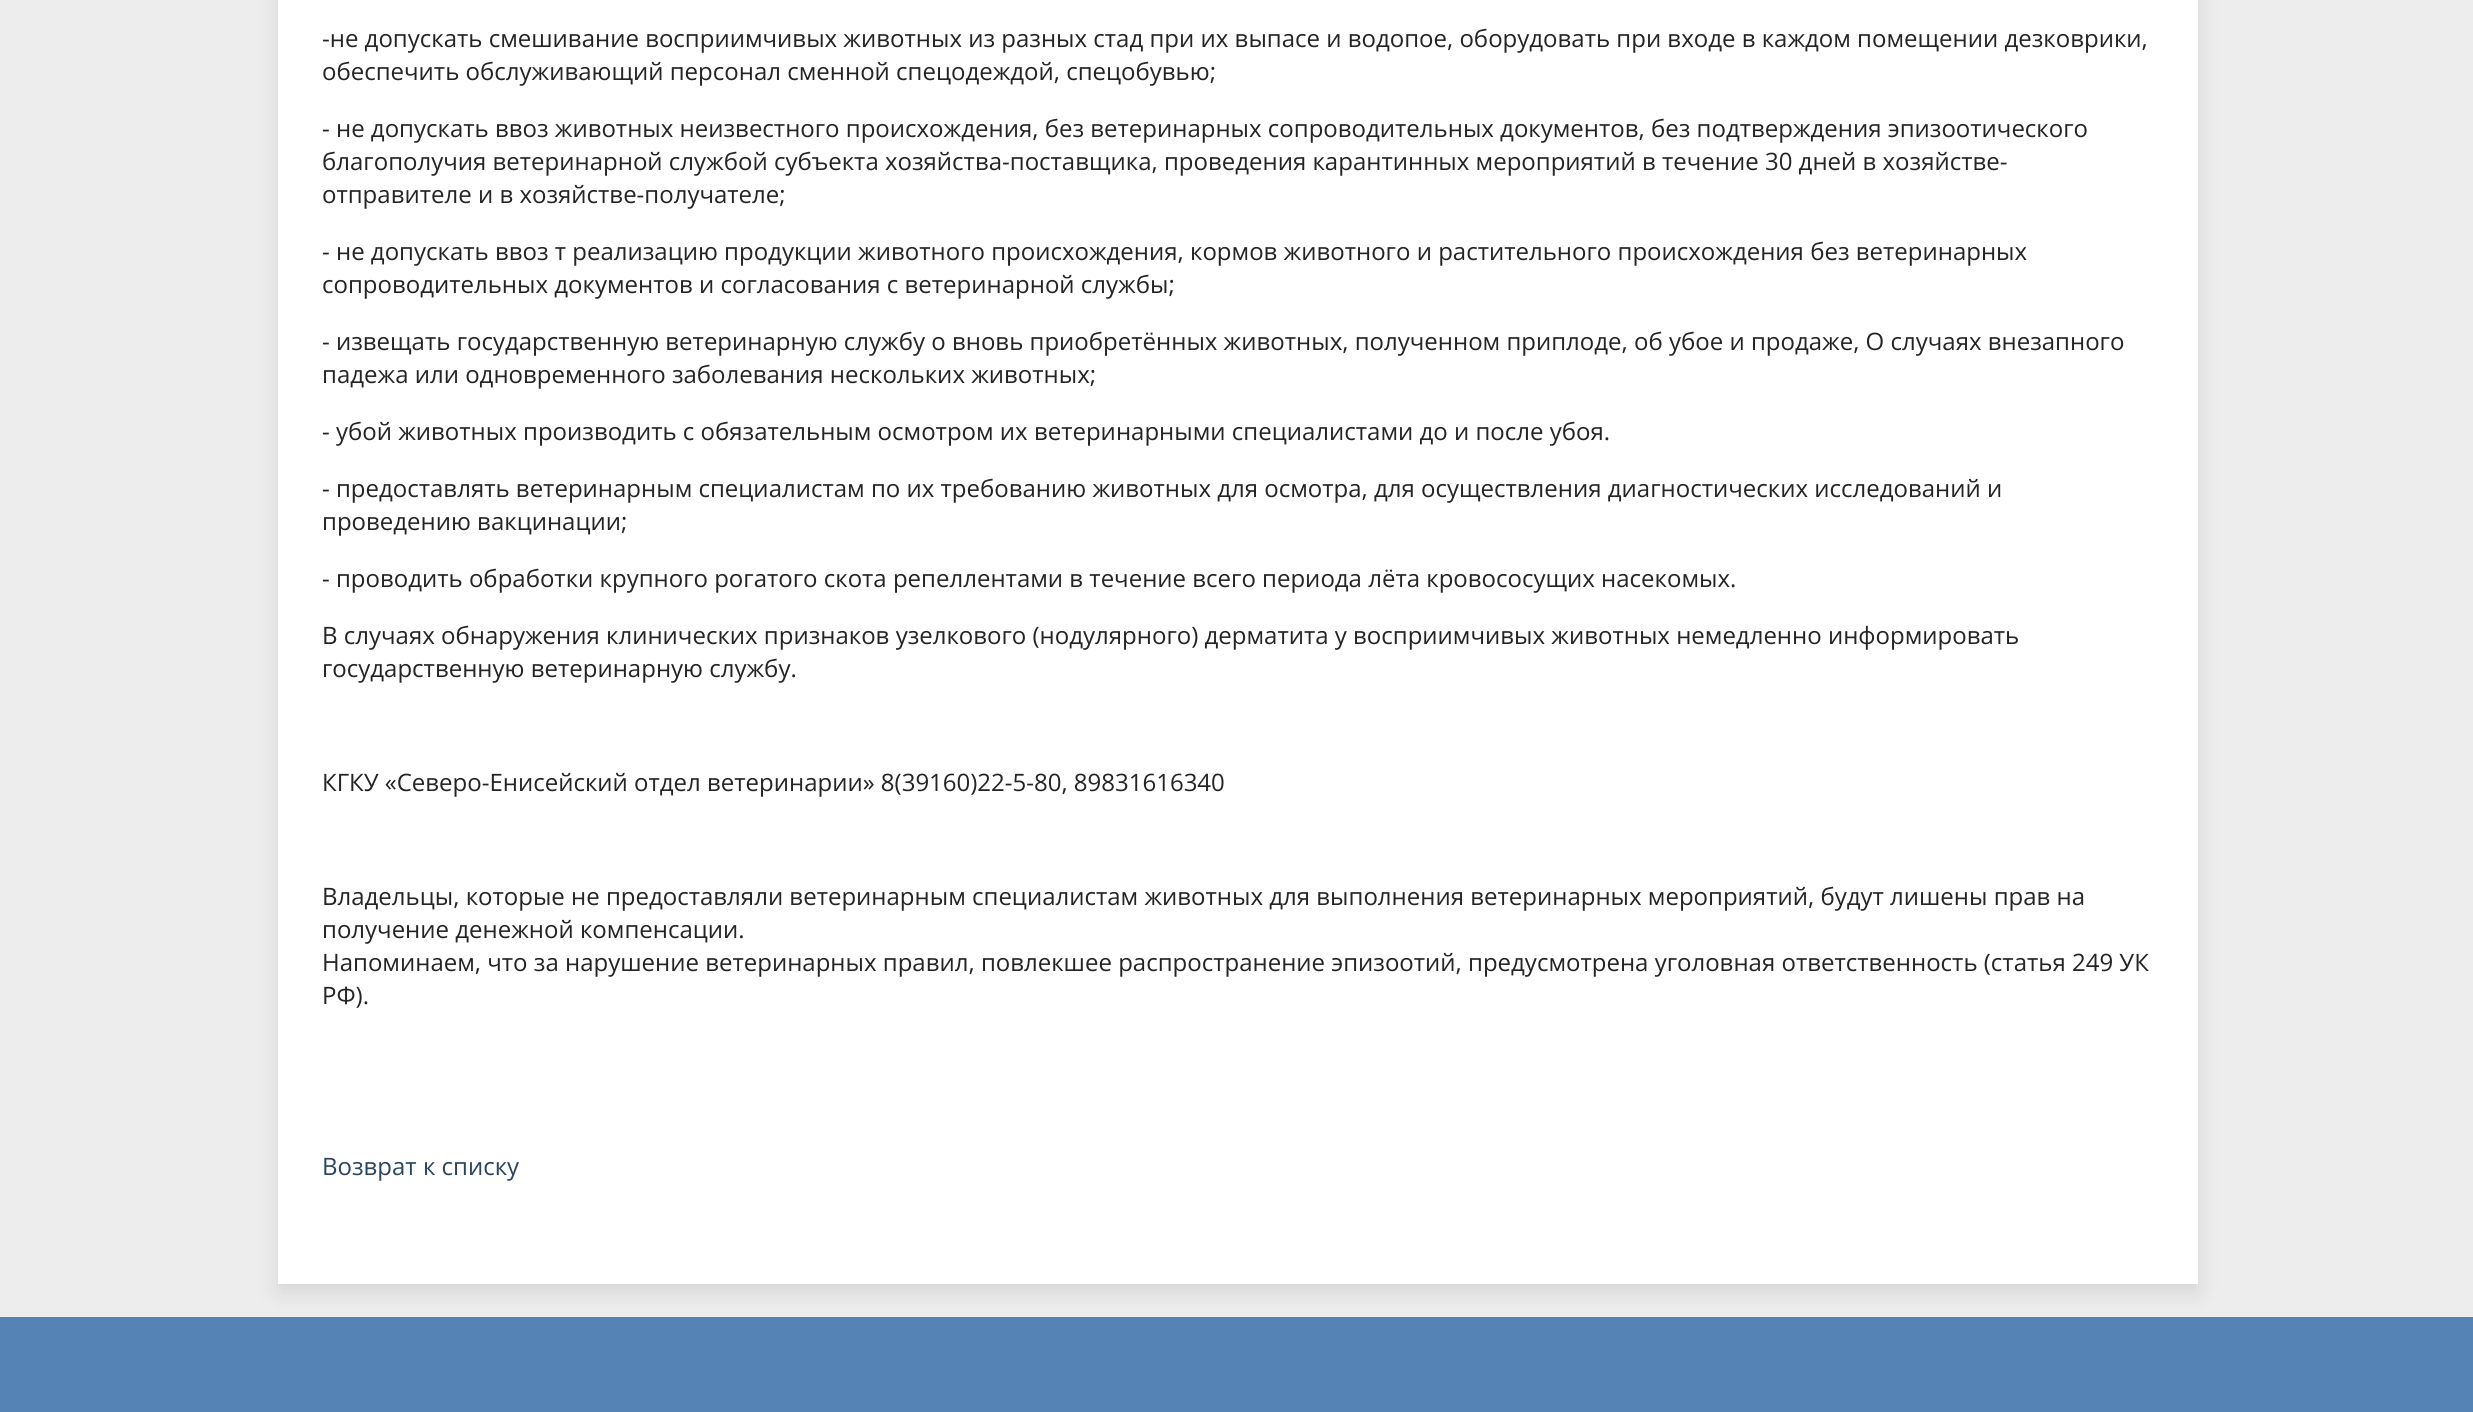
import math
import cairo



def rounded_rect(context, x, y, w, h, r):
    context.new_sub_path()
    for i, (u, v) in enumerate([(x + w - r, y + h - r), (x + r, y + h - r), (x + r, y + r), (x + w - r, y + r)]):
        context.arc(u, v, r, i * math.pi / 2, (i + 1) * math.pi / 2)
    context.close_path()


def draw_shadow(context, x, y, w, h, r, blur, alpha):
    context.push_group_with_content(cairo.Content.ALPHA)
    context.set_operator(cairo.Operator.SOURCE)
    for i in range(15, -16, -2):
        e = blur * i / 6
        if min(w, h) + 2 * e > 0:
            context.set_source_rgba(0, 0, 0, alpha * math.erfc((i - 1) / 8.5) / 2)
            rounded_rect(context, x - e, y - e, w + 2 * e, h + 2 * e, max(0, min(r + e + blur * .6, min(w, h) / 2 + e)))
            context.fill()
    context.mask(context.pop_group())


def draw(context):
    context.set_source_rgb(237 / 255, 237 / 255, 237 / 255)
    context.paint()
    context.set_source_rgb(85 / 255, 131 / 255, 182 / 255)
    context.rectangle(0, 1317, 2473, 95)
    context.fill()
    context.set_source_rgb(0, 0, 0)
    draw_shadow(context, 278, -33, 1920, 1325, 0, 11, 0.1)
    context.set_source_rgb(1, 1, 1)
    context.rectangle(278, 0, 1920, 1284)
    context.fill()
    context.select_font_face("Open Sans")
    context.set_font_size(24)
    context.set_source_rgb(36 / 255, 36 / 255, 36 / 255)
    context.move_to(322, 47)
    context.show_text("-не допускать смешивание восприимчивых животных из разных стад при их выпасе и водопое, оборудовать при входе в каждом помещении дезковрики,")
    context.move_to(322, 80)
    context.show_text("обеспечить обслуживающий персонал сменной спецодеждой, спецобувью;")
    context.move_to(322, 137)
    context.show_text("- не допускать ввоз животных неизвестного происхождения, без ветеринарных сопроводительных документов, без подтверждения эпизоотического")
    context.move_to(322, 170)
    context.show_text("благополучия ветеринарной службой субъекта хозяйства-поставщика, проведения карантинных мероприятий в течение 30 дней в хозяйстве-")
    context.move_to(322, 203)
    context.show_text("отправителе и в хозяйстве-получателе;")
    context.move_to(322, 260)
    context.show_text("- не допускать ввоз т реализацию продукции животного происхождения, кормов животного и растительного происхождения без ветеринарных")
    context.move_to(322, 293)
    context.show_text("сопроводительных документов и согласования с ветеринарной службы;")
    context.move_to(322, 350)
    context.show_text("- извещать государственную ветеринарную службу о вновь приобретённых животных, полученном приплоде, об убое и продаже, О случаях внезапного")
    context.move_to(322, 383)
    context.show_text("падежа или одновременного заболевания нескольких животных;")
    context.move_to(322, 440)
    context.show_text("- убой животных производить с обязательным осмотром их ветеринарными специалистами до и после убоя.")
    context.move_to(322, 497)
    context.show_text("- предоставлять ветеринарным специалистам по их требованию животных для осмотра, для осуществления диагностических исследований и")
    context.move_to(322, 530)
    context.show_text("проведению вакцинации;")
    context.move_to(322, 587)
    context.show_text("- проводить обработки крупного рогатого скота репеллентами в течение всего периода лёта кровососущих насекомых.")
    context.move_to(322, 644)
    context.show_text("В случаях обнаружения клинических признаков узелкового (нодулярного) дерматита у восприимчивых животных немедленно информировать")
    context.move_to(322, 677)
    context.show_text("государственную ветеринарную службу.")
    context.move_to(322, 791)
    context.show_text("КГКУ «Северо-Енисейский отдел ветеринарии» 8(39160)22-5-80, 89831616340")
    context.move_to(322, 905)
    context.show_text("Владельцы, которые не предоставляли ветеринарным специалистам животных для выполнения ветеринарных мероприятий, будут лишены прав на")
    context.move_to(322, 938)
    context.show_text("получение денежной компенсации.")
    context.move_to(322, 971)
    context.show_text("Напоминаем, что за нарушение ветеринарных правил, повлекшее распространение эпизоотий, предусмотрена уголовная ответственность (статья 249 УК")
    context.move_to(322, 1004)
    context.show_text("РФ).")
    context.set_source_rgb(43 / 255, 68 / 255, 96 / 255)
    context.move_to(322, 1175)
    context.show_text("Возврат к списку")


surface = cairo.ImageSurface(cairo.Format.RGB24, 2473, 1412)
context = cairo.Context(surface)
options = cairo.FontOptions()
options.set_hint_metrics(cairo.HintMetrics.OFF)
options.set_hint_style(cairo.HintStyle.NONE)
context.set_font_options(options)
context.set_miter_limit(4)
draw(context)
surface.write_to_png("out.png")
